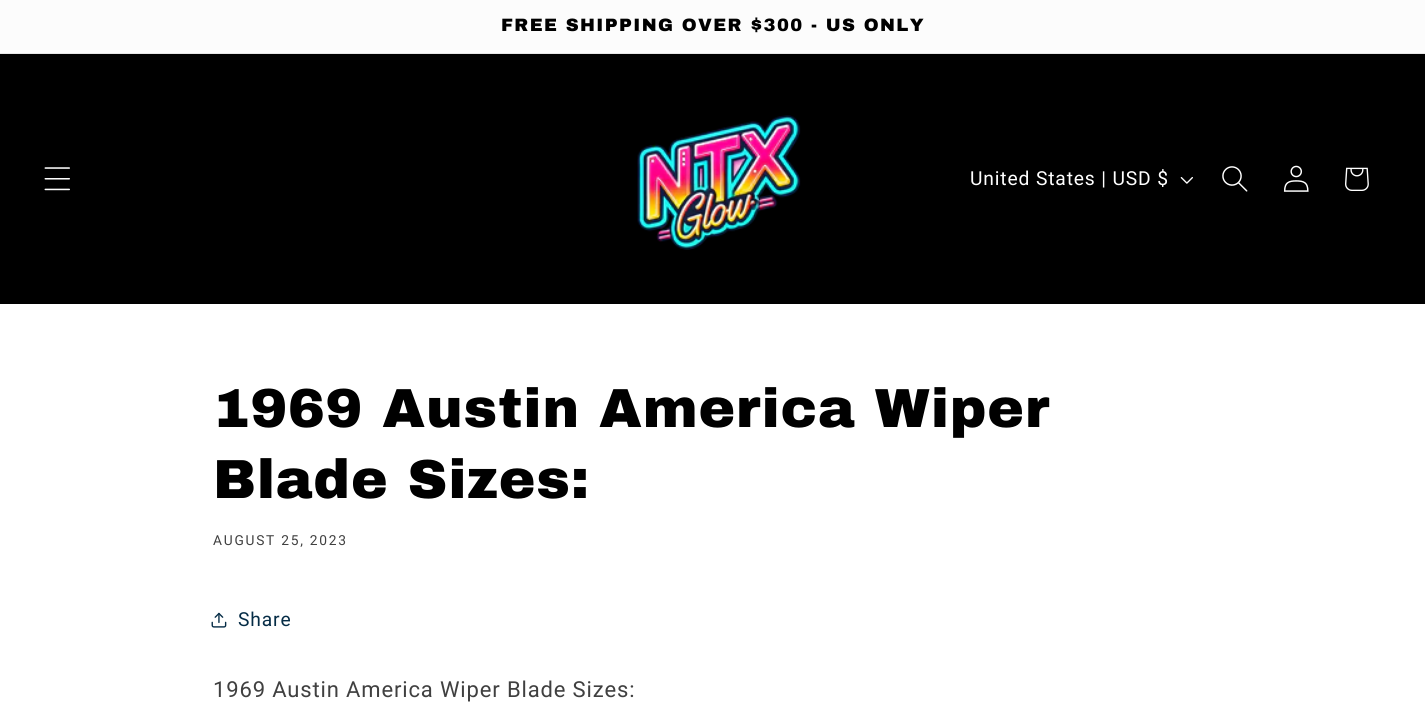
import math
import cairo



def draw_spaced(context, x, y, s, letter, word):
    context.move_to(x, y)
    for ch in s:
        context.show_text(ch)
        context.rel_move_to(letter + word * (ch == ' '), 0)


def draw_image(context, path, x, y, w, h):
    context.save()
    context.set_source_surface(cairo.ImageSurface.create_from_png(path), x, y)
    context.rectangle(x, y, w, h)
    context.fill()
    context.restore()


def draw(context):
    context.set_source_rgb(1, 1, 1)
    context.paint()
    context.set_source_rgb(252 / 255, 252 / 255, 252 / 255)
    context.rectangle(0, 0, 1425, 53)
    context.fill()
    context.set_source_rgb(232 / 255, 232 / 255, 232 / 255)
    context.rectangle(0, 53, 1425, 1)
    context.fill()
    context.set_source_rgb(0, 0, 0)
    context.rectangle(0, 54, 1425, 250)
    context.fill()
    draw_image(context, "images/1.png", 44, 167, 26, 24)
    draw_image(context, "images/2.png", 637, 115, 164, 135)
    draw_image(context, "images/3.png", 1180, 177, 13, 7)
    draw_image(context, "images/4.png", 1222, 166, 26, 26)
    draw_image(context, "images/5.png", 1283, 165, 26, 27)
    draw_image(context, "images/6.png", 1345, 167, 24, 24)
    draw_image(context, "images/7.png", 211, 612, 16, 16)
    context.select_font_face("Archivo Black")
    context.set_font_size(17.9)
    draw_spaced(context, 501, 31, "FREE SHIPPING OVER $300 - US ONLY", 1.4, 0)
    context.select_font_face("Roboto")
    context.set_font_size(19.25)
    context.set_source_rgb(1, 1, 1)
    draw_spaced(context, 970, 185, "United States | USD $", 0.85, 0)
    context.select_font_face("Archivo Black")
    context.set_font_size(55)
    context.set_source_rgb(0, 0, 0)
    draw_spaced(context, 213, 427, "1969 Austin America Wiper", 0.85, 0)
    draw_spaced(context, 213, 498, "Blade Sizes:", 0.85, 0)
    context.select_font_face("Roboto")
    context.set_font_size(13.75)
    context.set_source_rgb(64 / 255, 64 / 255, 64 / 255)
    draw_spaced(context, 213, 545, "AUGUST 25, 2023", 1.75, 0)
    context.set_font_size(19.25)
    context.set_source_rgb(5 / 255, 44 / 255, 70 / 255)
    draw_spaced(context, 238, 626, "Share", 0.85, 0)
    context.set_font_size(22)
    context.set_source_rgb(64 / 255, 64 / 255, 64 / 255)
    draw_spaced(context, 213, 697, "1969 Austin America Wiper Blade Sizes:", 0.85, 0)


surface = cairo.ImageSurface(cairo.Format.RGB24, 1425, 705)
context = cairo.Context(surface)
options = cairo.FontOptions()
options.set_hint_metrics(cairo.HintMetrics.OFF)
options.set_hint_style(cairo.HintStyle.NONE)
context.set_font_options(options)
context.set_miter_limit(4)
draw(context)
surface.write_to_png("out.png")
